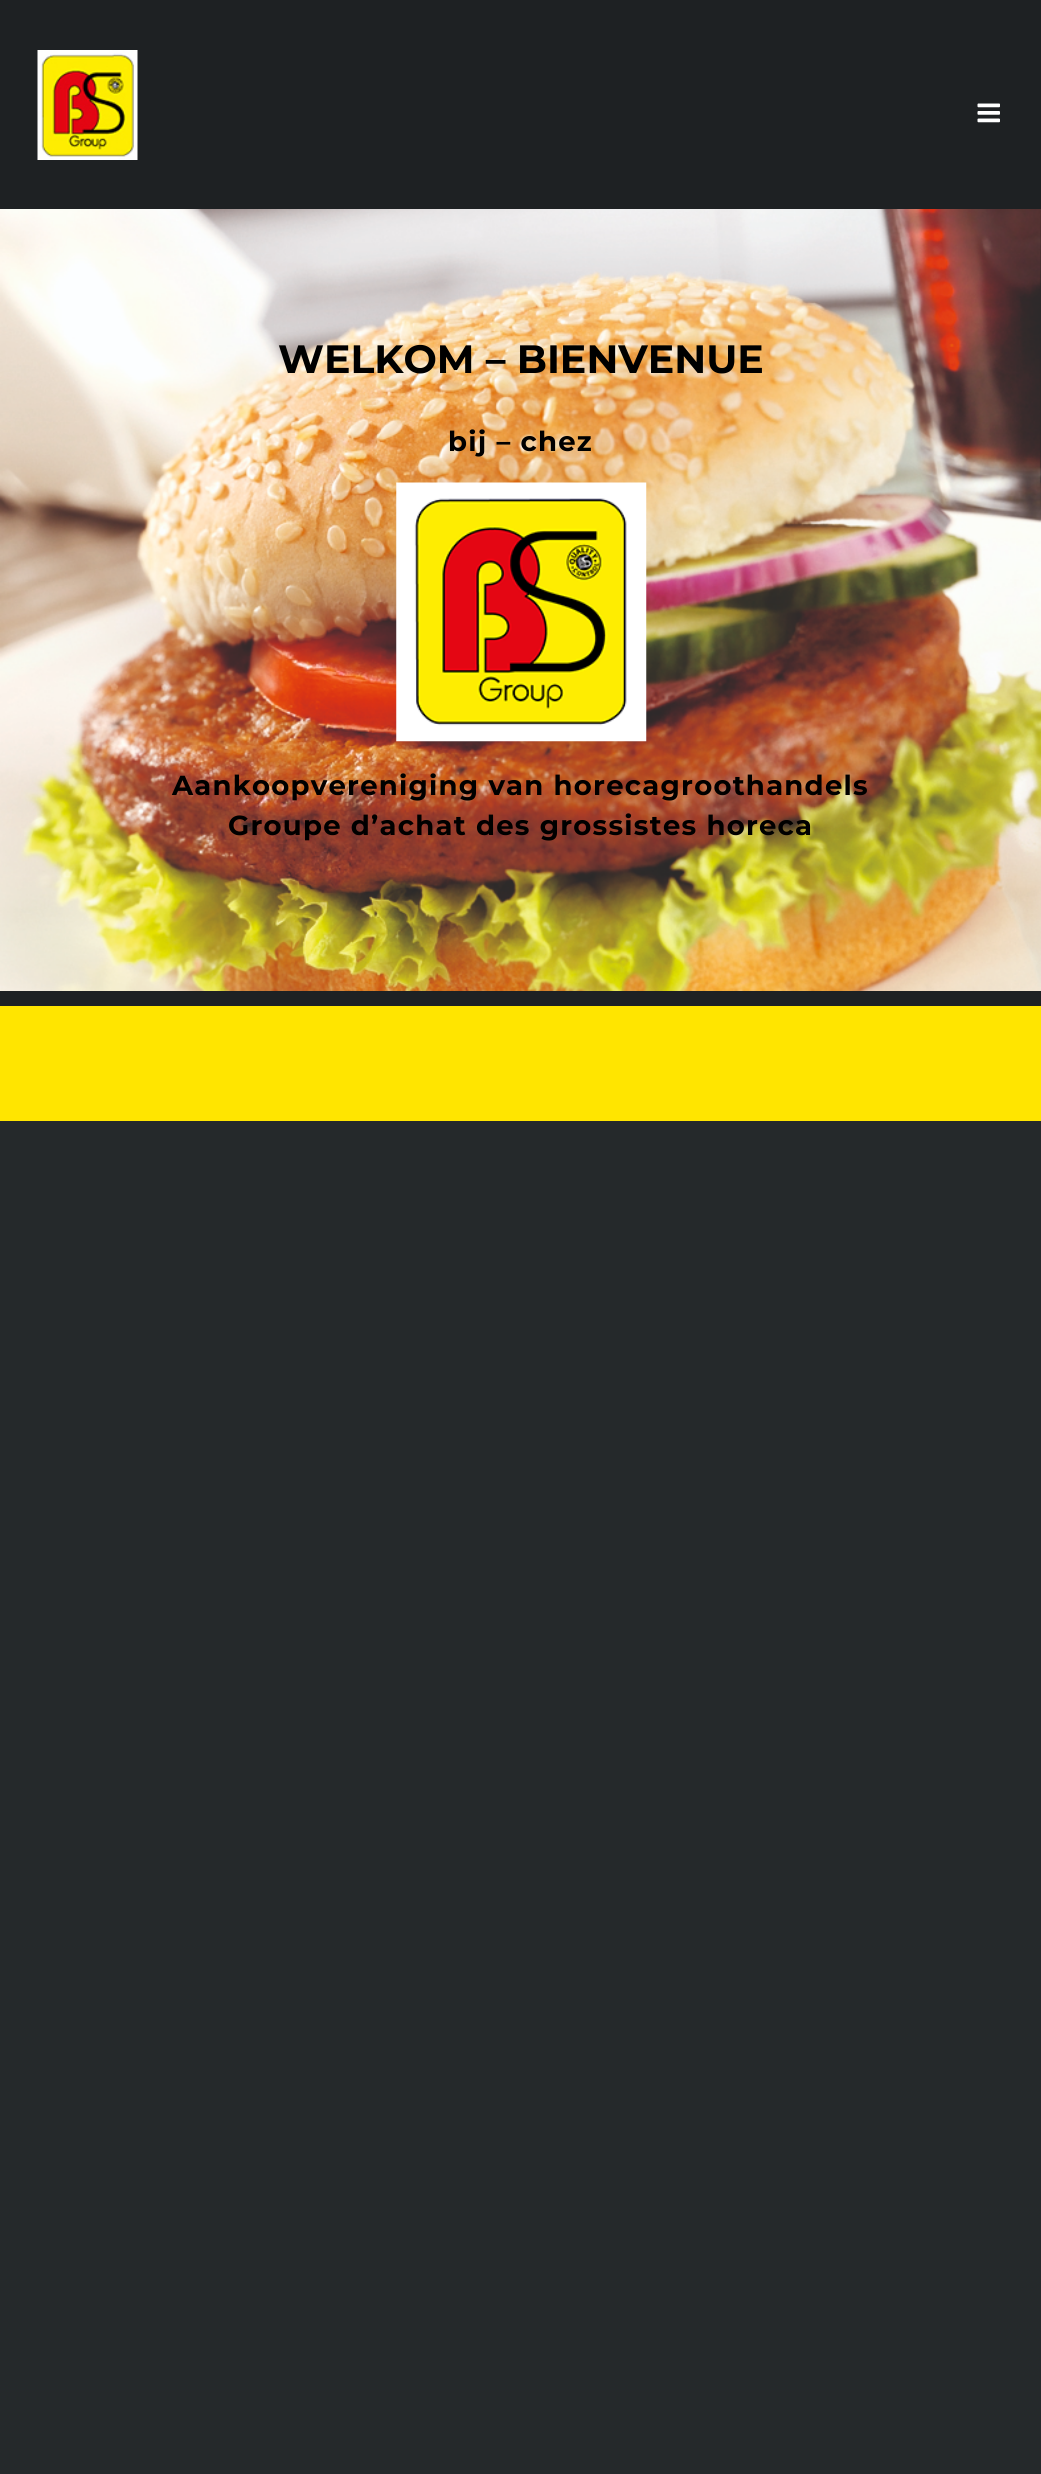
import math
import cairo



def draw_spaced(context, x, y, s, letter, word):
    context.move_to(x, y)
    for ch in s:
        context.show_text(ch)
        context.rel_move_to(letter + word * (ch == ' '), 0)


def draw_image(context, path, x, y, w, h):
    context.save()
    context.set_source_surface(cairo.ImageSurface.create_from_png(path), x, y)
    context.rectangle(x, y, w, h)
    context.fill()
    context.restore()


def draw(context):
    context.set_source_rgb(37 / 255, 41 / 255, 43 / 255)
    context.paint()
    context.set_source_rgb(30 / 255, 33 / 255, 35 / 255)
    context.rectangle(0, 0, 1041, 209)
    context.fill()
    draw_image(context, "images/1.png", 37, 50, 101, 110)
    draw_image(context, "images/2.png", 977, 103, 23, 20)
    draw_image(context, "images/3.png", 0, 209, 1041, 782)
    draw_image(context, "images/4.png", 396, 482, 251, 260)
    context.set_source_rgb(1, 229 / 255, 0)
    context.rectangle(0, 1006, 1041, 115)
    context.fill()
    context.set_source_rgb(30 / 255, 33 / 255, 35 / 255)
    context.rectangle(0, 991, 1041, 15)
    context.fill()
    context.select_font_face("Montserrat", cairo.FontSlant.NORMAL, cairo.FontWeight.BOLD)
    context.set_font_size(39.5)
    context.set_source_rgb(0, 0, 0)
    context.move_to(278, 373)
    context.show_text("WELKOM – BIENVENUE")
    context.set_font_size(27.5)
    draw_spaced(context, 448, 451, "bij – chez", 1.25, 0)
    draw_spaced(context, 172, 795, "Aankoopvereniging van horecagroothandels", 1.25, 0)
    draw_spaced(context, 228, 835, "Groupe d’achat des grossistes horeca", 1.25, 0)


surface = cairo.ImageSurface(cairo.Format.RGB24, 1041, 2474)
context = cairo.Context(surface)
options = cairo.FontOptions()
options.set_hint_metrics(cairo.HintMetrics.OFF)
options.set_hint_style(cairo.HintStyle.NONE)
context.set_font_options(options)
context.set_miter_limit(4)
draw(context)
surface.write_to_png("out.png")
